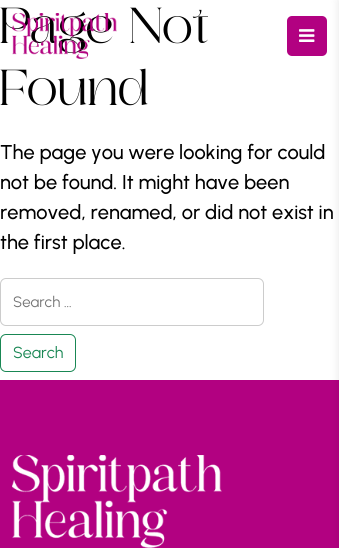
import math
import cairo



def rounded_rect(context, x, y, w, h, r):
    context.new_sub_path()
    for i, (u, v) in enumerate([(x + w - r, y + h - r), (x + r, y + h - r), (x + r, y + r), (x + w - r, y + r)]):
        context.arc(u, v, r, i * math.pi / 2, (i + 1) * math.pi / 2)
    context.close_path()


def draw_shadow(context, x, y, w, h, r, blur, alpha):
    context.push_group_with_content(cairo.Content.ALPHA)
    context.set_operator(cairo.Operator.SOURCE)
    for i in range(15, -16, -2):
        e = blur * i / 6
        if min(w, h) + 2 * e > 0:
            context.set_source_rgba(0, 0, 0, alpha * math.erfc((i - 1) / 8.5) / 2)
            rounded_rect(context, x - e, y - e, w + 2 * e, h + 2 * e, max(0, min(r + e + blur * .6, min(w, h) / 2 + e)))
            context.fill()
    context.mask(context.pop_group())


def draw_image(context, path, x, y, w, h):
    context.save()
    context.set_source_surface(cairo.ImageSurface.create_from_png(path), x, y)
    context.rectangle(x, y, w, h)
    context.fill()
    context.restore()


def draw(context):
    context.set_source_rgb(1, 1, 1)
    context.paint()
    context.set_source_rgb(178 / 255, 1 / 255, 129 / 255)
    rounded_rect(context, 287, 16, 40, 40, 5)
    context.fill()
    draw_image(context, "images/2.png", 299, 29, 16, 13)
    context.rectangle(0, 380, 339, 168)
    context.fill()
    context.set_source_rgb(0, 0, 0)
    draw_shadow(context, 339, 0, 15, 548, 0, 5, 0.1)
    rounded_rect(context, 0.5, 278.5, 263, 47, 5.5)
    context.set_source_rgb(204 / 255, 204 / 255, 204 / 255)
    context.set_line_width(1)
    context.stroke()
    rounded_rect(context, 0.5, 334.5, 75, 37, 5.5)
    context.set_source_rgb(25 / 255, 135 / 255, 84 / 255)
    context.stroke()
    draw_image(context, "images/3.png", 12, 455, 210, 93)
    context.select_font_face("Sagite")
    context.set_font_size(52)
    context.set_source_rgb(0, 0, 0)
    context.move_to(0, 43)
    context.show_text("Page Not")
    draw_image(context, "images/1.png", 12, 13, 105, 46)
    context.move_to(0, 105)
    context.show_text("Found")
    context.select_font_face("Urbanist Medium")
    context.set_font_size(20)
    context.move_to(0, 159)
    context.show_text("The page you were looking for could")
    context.move_to(0, 189)
    context.show_text("not be found. It might have been")
    context.move_to(0, 219)
    context.show_text("removed, renamed, or did not exist in")
    context.move_to(0, 249)
    context.show_text("the first place.")
    context.select_font_face("Urbanist")
    context.set_font_size(15)
    context.set_source_rgb(117 / 255, 117 / 255, 117 / 255)
    context.move_to(13, 307)
    context.show_text("Search …")
    context.set_font_size(16)
    context.set_source_rgb(25 / 255, 135 / 255, 84 / 255)
    context.move_to(13, 358)
    context.show_text("Search")


surface = cairo.ImageSurface(cairo.Format.RGB24, 339, 548)
context = cairo.Context(surface)
options = cairo.FontOptions()
options.set_hint_metrics(cairo.HintMetrics.OFF)
options.set_hint_style(cairo.HintStyle.NONE)
context.set_font_options(options)
context.set_miter_limit(4)
draw(context)
surface.write_to_png("out.png")
